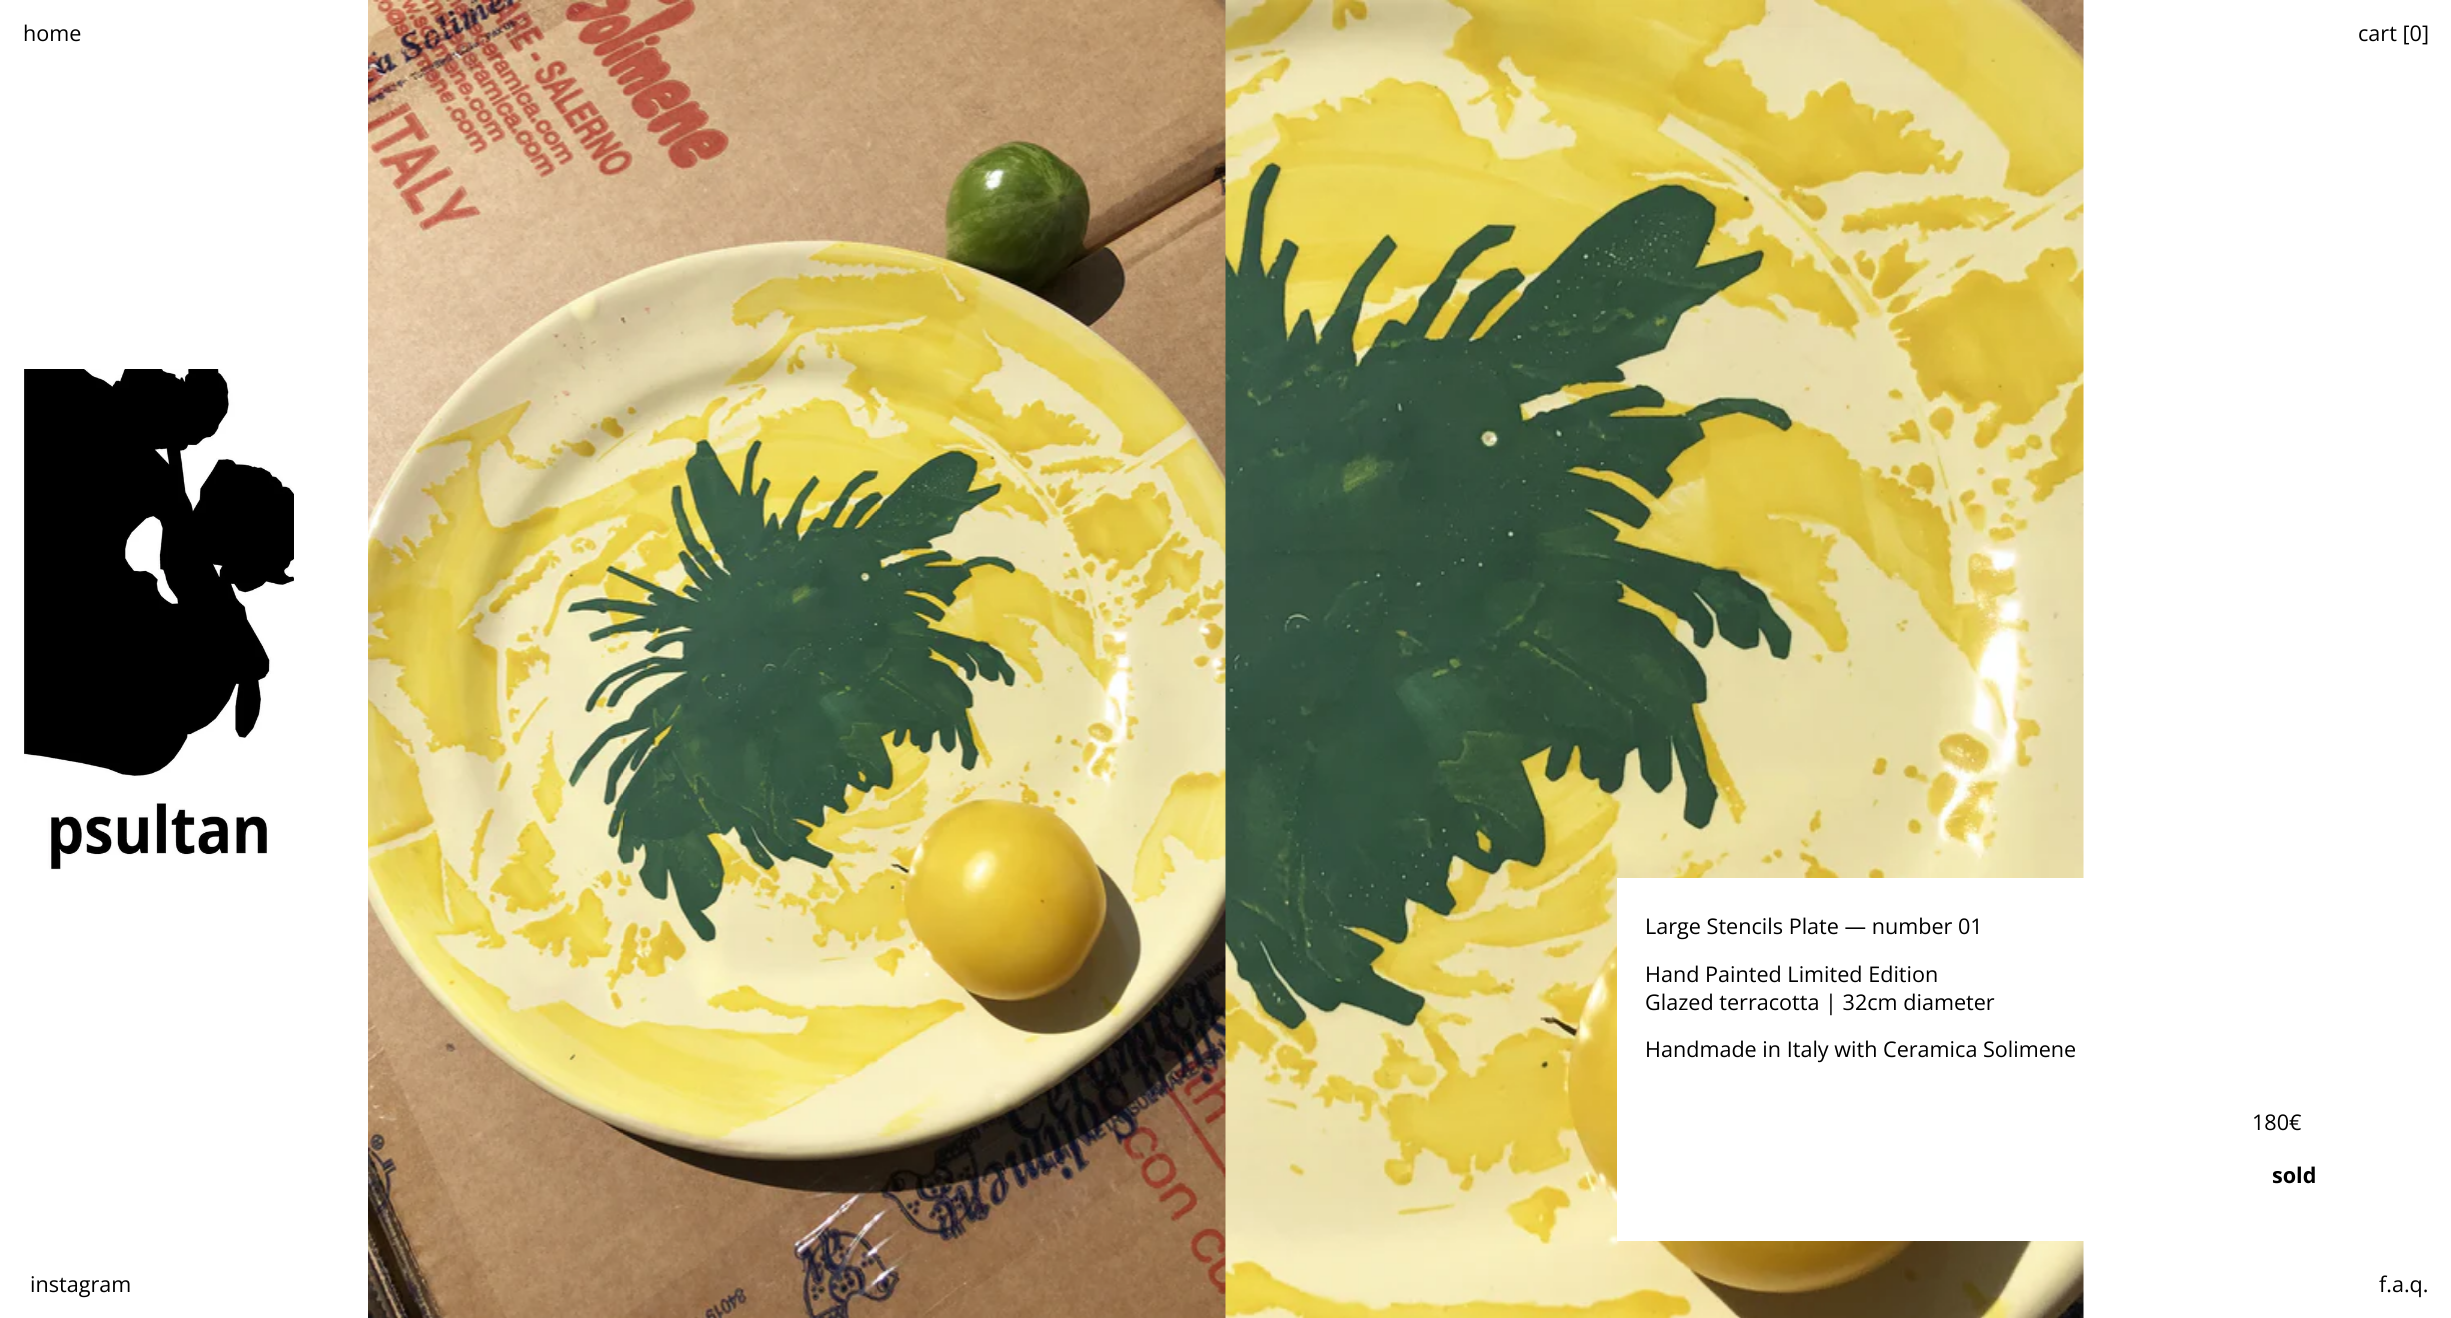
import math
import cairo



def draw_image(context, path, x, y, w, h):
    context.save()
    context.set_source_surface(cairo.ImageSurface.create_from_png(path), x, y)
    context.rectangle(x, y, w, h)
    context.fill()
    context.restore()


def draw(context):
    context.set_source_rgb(1, 1, 1)
    context.paint()
    draw_image(context, "images/1.png", 24, 369, 270, 501)
    draw_image(context, "images/2.png", 368, 0, 858, 1318)
    draw_image(context, "images/3.png", 1225, 0, 859, 1318)
    context.set_source_rgb(1, 1, 1)
    context.rectangle(1617, 878, 467, 363)
    context.fill()
    context.select_font_face("Open Sans")
    context.set_font_size(21.6)
    context.set_source_rgb(0, 0, 0)
    context.move_to(23, 41)
    context.show_text("home")
    context.move_to(2358, 41)
    context.show_text("cart [0]")
    context.move_to(1645, 934)
    context.show_text("Large Stencils Plate — number 01")
    context.move_to(1645, 982)
    context.show_text("Hand Painted Limited Edition")
    context.move_to(1645, 1010)
    context.show_text("Glazed terracotta | 32cm diameter")
    context.move_to(1645, 1057)
    context.show_text("Handmade in Italy with Ceramica Solimene")
    context.move_to(2252, 1130)
    context.show_text("180€")
    context.select_font_face("Open Sans", cairo.FontSlant.NORMAL, cairo.FontWeight.BOLD)
    context.move_to(2272, 1183)
    context.show_text("sold")
    context.select_font_face("Open Sans")
    context.move_to(30, 1292)
    context.show_text("instagram")
    context.move_to(2379, 1292)
    context.show_text("f.a.q.")


surface = cairo.ImageSurface(cairo.Format.RGB24, 2451, 1318)
context = cairo.Context(surface)
options = cairo.FontOptions()
options.set_hint_metrics(cairo.HintMetrics.OFF)
options.set_hint_style(cairo.HintStyle.NONE)
context.set_font_options(options)
context.set_miter_limit(4)
draw(context)
surface.write_to_png("out.png")
